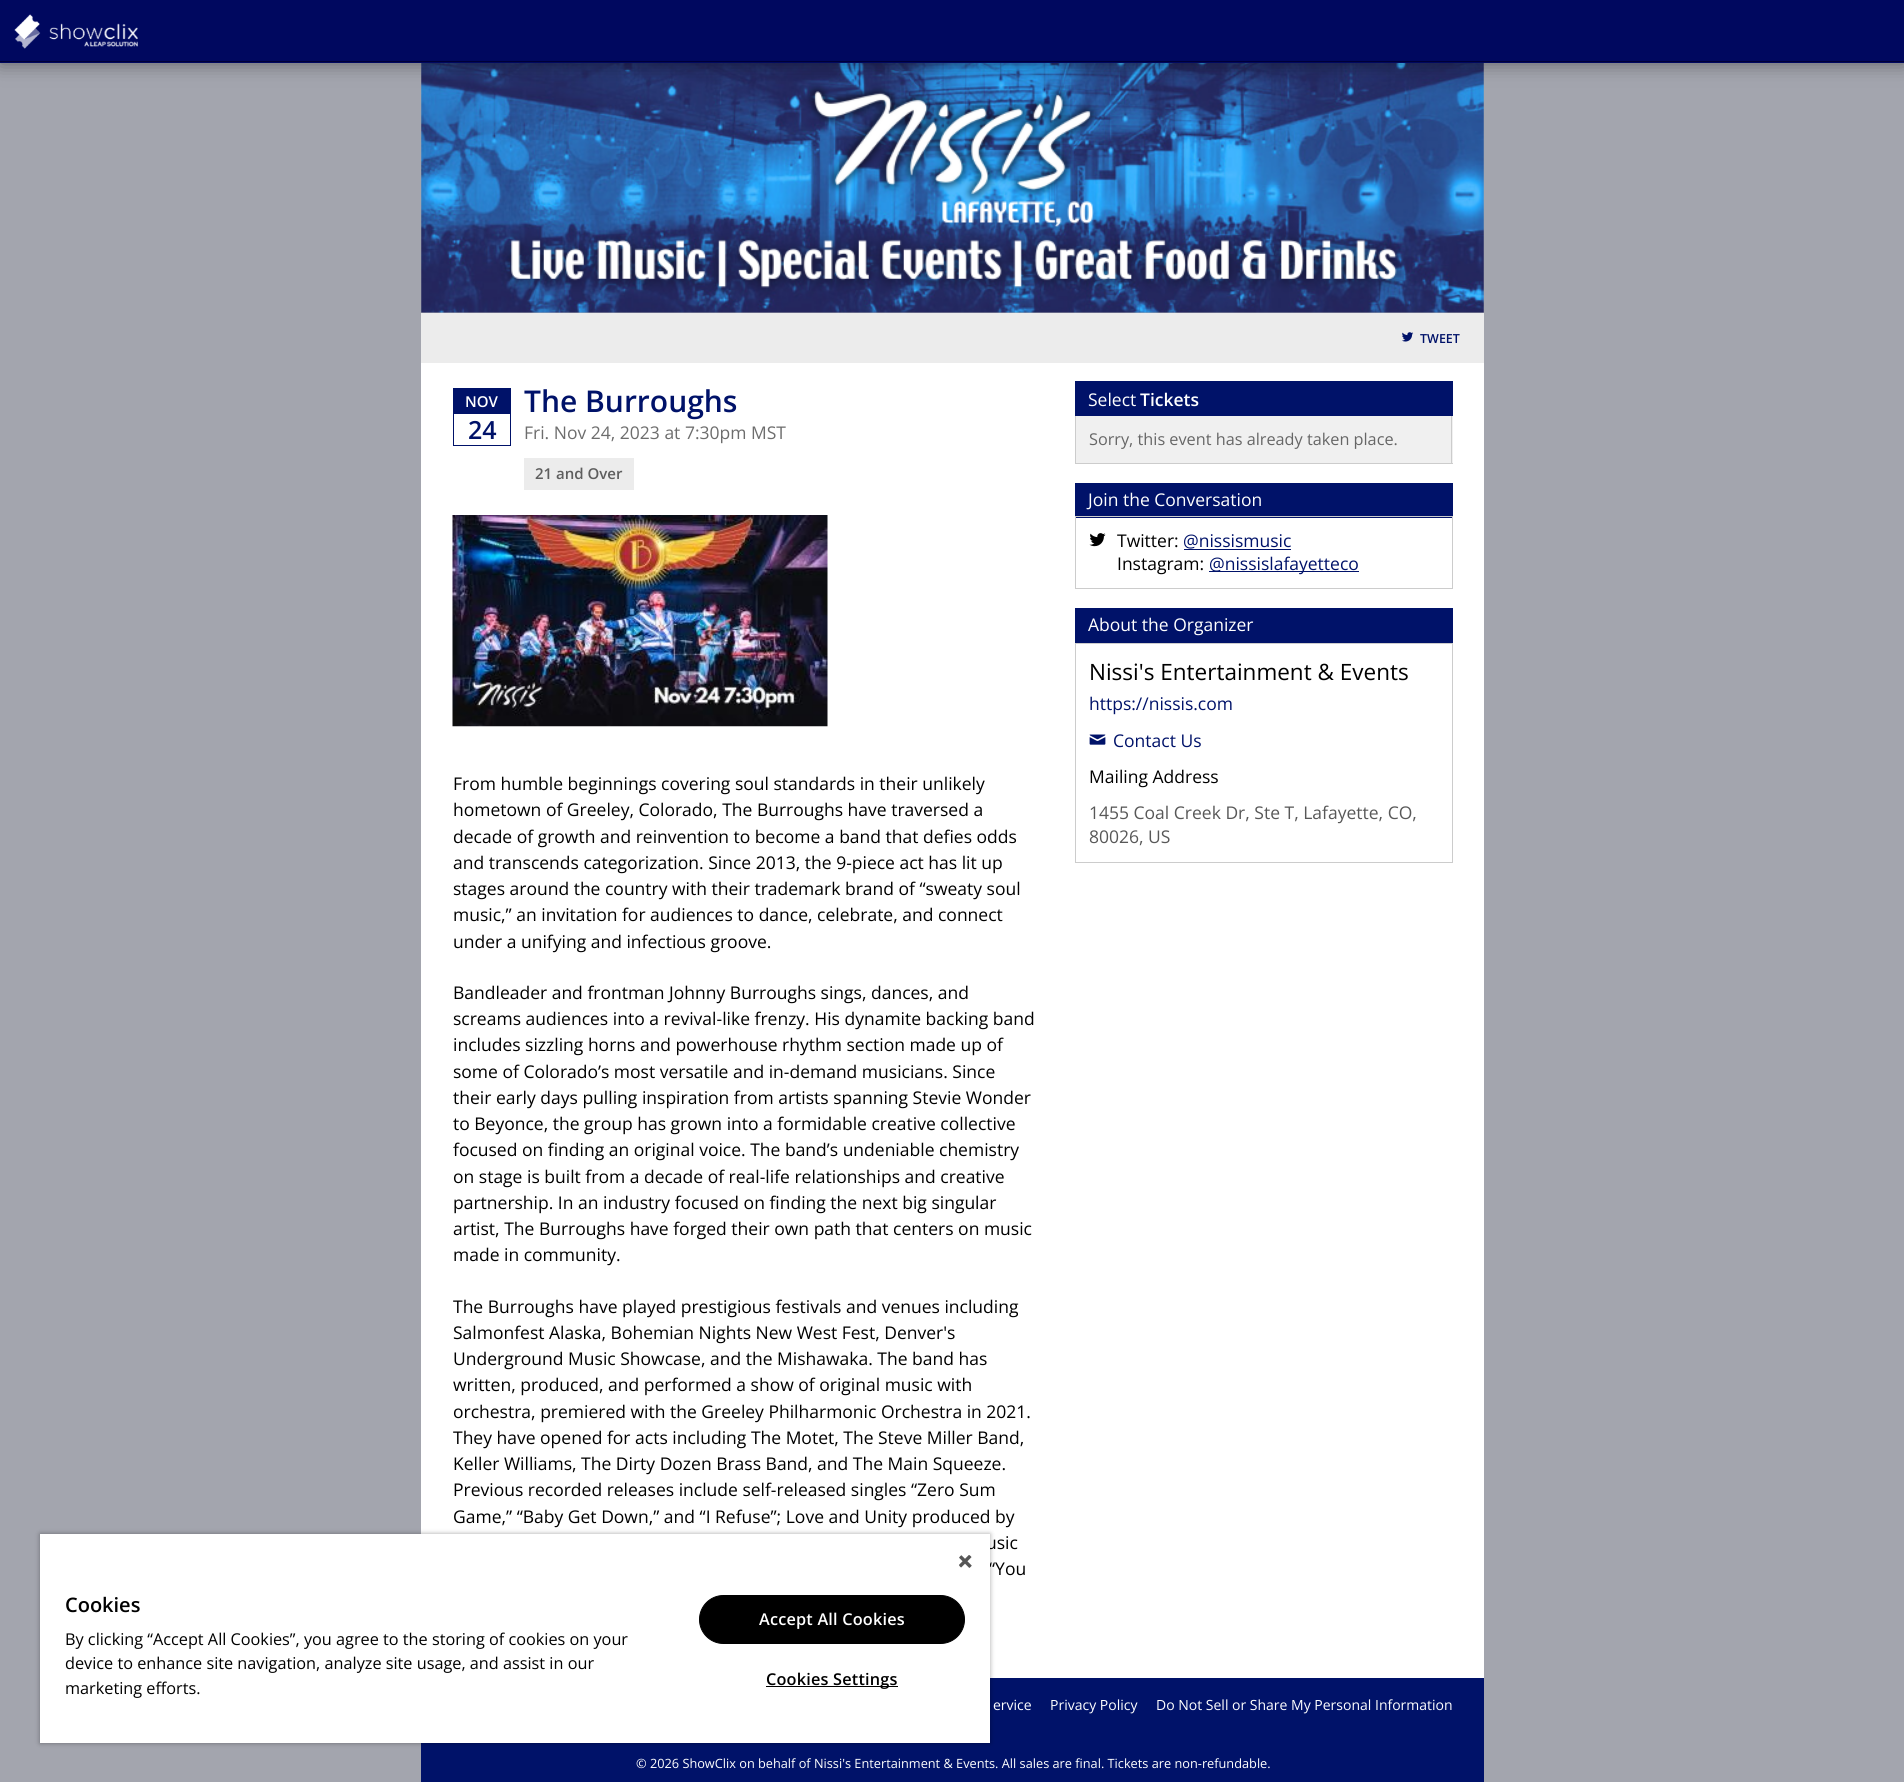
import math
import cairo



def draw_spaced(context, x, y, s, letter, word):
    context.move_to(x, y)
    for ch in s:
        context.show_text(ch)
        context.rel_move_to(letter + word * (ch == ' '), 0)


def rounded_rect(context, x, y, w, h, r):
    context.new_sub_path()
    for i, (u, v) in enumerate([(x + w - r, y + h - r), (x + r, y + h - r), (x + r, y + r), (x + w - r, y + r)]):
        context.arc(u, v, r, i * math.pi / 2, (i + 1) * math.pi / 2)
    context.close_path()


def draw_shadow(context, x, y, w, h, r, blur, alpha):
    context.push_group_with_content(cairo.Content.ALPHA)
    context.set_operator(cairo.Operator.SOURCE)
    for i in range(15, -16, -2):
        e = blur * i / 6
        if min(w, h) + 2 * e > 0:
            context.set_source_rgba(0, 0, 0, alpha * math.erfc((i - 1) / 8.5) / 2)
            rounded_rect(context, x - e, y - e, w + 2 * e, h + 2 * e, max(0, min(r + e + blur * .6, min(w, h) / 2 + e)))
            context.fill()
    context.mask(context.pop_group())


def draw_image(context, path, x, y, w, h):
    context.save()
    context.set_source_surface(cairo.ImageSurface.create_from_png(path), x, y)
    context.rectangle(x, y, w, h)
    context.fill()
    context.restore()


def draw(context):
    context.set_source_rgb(163 / 255, 165 / 255, 174 / 255)
    context.paint()
    draw_image(context, "images/2.png", 421, 63, 1063, 250)
    context.set_source_rgb(0, 0, 0)
    draw_shadow(context, 0, 1, 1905, 63, 0, 9.5, 0.4)
    context.set_source_rgb(0, 8 / 255, 95 / 255)
    context.rectangle(0, 0, 1904, 63)
    context.fill()
    context.set_source_rgb(0, 0, 55 / 255)
    context.rectangle(0, 61, 1904, 1)
    context.fill()
    draw_image(context, "images/1.png", 14, 14, 124, 35)
    context.set_source_rgb(1, 1, 1)
    context.rectangle(421, 363, 1063, 1315)
    context.fill()
    context.set_source_rgb(236 / 255, 236 / 255, 236 / 255)
    context.rectangle(421, 313, 1063, 50)
    context.fill()
    draw_image(context, "images/3.png", 1402, 332, 12, 10)
    context.rectangle(453.5, 388.5, 57, 57)
    context.set_source_rgb(0, 18 / 255, 105 / 255)
    context.set_line_width(1)
    context.stroke()
    context.rectangle(454, 389, 56, 25)
    context.fill()
    context.set_source_rgb(236 / 255, 236 / 255, 236 / 255)
    context.rectangle(524, 458, 110, 32)
    context.fill()
    draw_image(context, "images/4.png", 452, 515, 376, 212)
    context.set_source_rgb(0, 18 / 255, 105 / 255)
    context.rectangle(1075, 381, 378, 35)
    context.fill()
    context.set_source_rgb(240 / 255, 240 / 255, 240 / 255)
    context.rectangle(1076, 416, 377, 47)
    context.fill()
    context.set_source_rgb(204 / 255, 204 / 255, 204 / 255)
    context.rectangle(1451, 416, 1, 48)
    context.fill()
    context.rectangle(1075, 463, 378, 1)
    context.fill()
    context.rectangle(1075, 416, 1, 48)
    context.fill()
    context.set_source_rgb(0, 18 / 255, 105 / 255)
    context.rectangle(1075, 483, 378, 35)
    context.fill()
    context.rectangle(1075.5, 516.5, 377, 72)
    context.set_source_rgb(204 / 255, 204 / 255, 204 / 255)
    context.stroke()
    draw_image(context, "images/5.png", 1089, 533, 17, 14)
    context.set_source_rgb(0, 18 / 255, 105 / 255)
    context.rectangle(1184, 549, 107, 1)
    context.fill()
    context.rectangle(1209, 571, 150, 1)
    context.fill()
    context.rectangle(1075, 608, 378, 35)
    context.fill()
    context.rectangle(1075.5, 643.5, 377, 219)
    context.set_source_rgb(204 / 255, 204 / 255, 204 / 255)
    context.stroke()
    draw_image(context, "images/6.png", 1089, 734, 17, 11)
    context.set_source_rgb(0, 18 / 255, 105 / 255)
    context.rectangle(990, 1678, 494, 55)
    context.fill()
    context.rectangle(421, 1733, 1063, 49)
    context.fill()
    context.set_source_rgb(0, 0, 0)
    draw_shadow(context, 40, 1534, 950, 209, 0, 2.5, 0.35)
    context.select_font_face("Open Sans SemiBold")
    context.set_font_size(12.5)
    context.set_source_rgb(0, 18 / 255, 105 / 255)
    context.move_to(1420, 343)
    context.show_text("TWEET")
    context.set_font_size(15)
    context.set_source_rgb(1, 1, 1)
    context.move_to(465, 407)
    context.show_text("NOV")
    context.set_font_size(25)
    context.set_source_rgb(0, 18 / 255, 105 / 255)
    context.move_to(468, 439)
    context.show_text("24")
    context.set_font_size(30)
    context.move_to(524, 412)
    context.show_text("The Burroughs")
    context.select_font_face("Open Sans")
    context.set_font_size(17.5)
    context.set_source_rgb(109 / 255, 109 / 255, 109 / 255)
    context.move_to(524, 439)
    context.show_text("Fri. Nov 24, 2023 at 7:30pm MST")
    context.select_font_face("Open Sans SemiBold")
    context.set_font_size(15)
    context.set_source_rgb(94 / 255, 94 / 255, 94 / 255)
    context.move_to(535, 479)
    context.show_text("21 and Over")
    context.select_font_face("Open Sans")
    context.set_font_size(17.5)
    context.set_source_rgb(0, 0, 0)
    context.move_to(453, 790)
    context.show_text("From humble beginnings covering soul standards in their unlikely")
    context.move_to(453, 816)
    context.show_text("hometown of Greeley, Colorado, The Burroughs have traversed a")
    context.move_to(453, 843)
    context.show_text("decade of growth and reinvention to become a band that defies odds")
    context.move_to(453, 869)
    context.show_text("and transcends categorization. Since 2013, the 9-piece act has lit up")
    context.move_to(453, 895)
    context.show_text("stages around the country with their trademark brand of “sweaty soul")
    context.move_to(453, 921)
    context.show_text("music,” an invitation for audiences to dance, celebrate, and connect")
    context.move_to(453, 948)
    context.show_text("under a unifying and infectious groove.")
    context.move_to(453, 999)
    context.show_text("Bandleader and frontman Johnny Burroughs sings, dances, and")
    context.move_to(453, 1025)
    context.show_text("screams audiences into a revival-like frenzy. His dynamite backing band")
    context.move_to(453, 1051)
    context.show_text("includes sizzling horns and powerhouse rhythm section made up of")
    context.move_to(453, 1078)
    context.show_text("some of Colorado’s most versatile and in-demand musicians. Since")
    context.move_to(453, 1104)
    context.show_text("their early days pulling inspiration from artists spanning Stevie Wonder")
    context.move_to(453, 1130)
    context.show_text("to Beyonce, the group has grown into a formidable creative collective")
    context.move_to(453, 1156)
    context.show_text("focused on finding an original voice. The band’s undeniable chemistry")
    context.move_to(453, 1183)
    context.show_text("on stage is built from a decade of real-life relationships and creative")
    context.move_to(453, 1209)
    context.show_text("partnership. In an industry focused on finding the next big singular")
    context.move_to(453, 1235)
    context.show_text("artist, The Burroughs have forged their own path that centers on music")
    context.move_to(453, 1261)
    context.show_text("made in community.")
    context.move_to(453, 1313)
    context.show_text("The Burroughs have played prestigious festivals and venues including")
    context.move_to(453, 1339)
    context.show_text("Salmonfest Alaska, Bohemian Nights New West Fest, Denver's")
    context.move_to(453, 1365)
    context.show_text("Underground Music Showcase, and the Mishawaka. The band has")
    context.move_to(453, 1391)
    context.show_text("written, produced, and performed a show of original music with")
    context.move_to(453, 1418)
    context.show_text("orchestra, premiered with the Greeley Philharmonic Orchestra in 2021.")
    context.move_to(453, 1444)
    context.show_text("They have opened for acts including The Motet, The Steve Miller Band,")
    context.move_to(453, 1470)
    context.show_text("Keller Williams, The Dirty Dozen Brass Band, and The Main Squeeze.")
    context.move_to(453, 1496)
    context.show_text("Previous recorded releases include self-released singles “Zero Sum")
    context.move_to(453, 1523)
    context.show_text("Game,” “Baby Get Down,” and “I Refuse”; Love and Unity produced by")
    context.move_to(986, 1549)
    context.show_text("usic")
    context.move_to(989, 1575)
    context.show_text("“You")
    context.set_source_rgb(1, 1, 1)
    context.move_to(1088, 406)
    context.show_text("Select")
    context.select_font_face("Open Sans SemiBold")
    context.move_to(1140, 406)
    context.show_text("Tickets")
    context.select_font_face("Open Sans")
    context.set_font_size(16.25)
    context.set_source_rgb(102 / 255, 102 / 255, 102 / 255)
    context.move_to(1089, 445)
    context.show_text("Sorry, this event has already taken place.")
    context.set_font_size(17.5)
    context.set_source_rgb(1, 1, 1)
    context.move_to(1088, 506)
    context.show_text("Join the Conversation")
    context.set_source_rgb(0, 0, 0)
    context.move_to(1117, 547)
    context.show_text("Twitter:")
    context.set_source_rgb(0, 18 / 255, 105 / 255)
    context.move_to(1183, 547)
    context.show_text("@nissismusic")
    context.set_source_rgb(0, 0, 0)
    context.move_to(1117, 570)
    context.show_text("Instagram:")
    context.set_source_rgb(0, 18 / 255, 105 / 255)
    context.move_to(1209, 570)
    context.show_text("@nissislafayetteco")
    context.set_source_rgb(1, 1, 1)
    context.move_to(1088, 631)
    context.show_text("About the Organizer")
    context.set_font_size(22.5)
    context.set_source_rgb(0, 0, 0)
    context.move_to(1089, 680)
    context.show_text("Nissi's Entertainment & Events")
    context.set_font_size(17.5)
    context.set_source_rgb(0, 18 / 255, 105 / 255)
    context.move_to(1089, 710)
    context.show_text("https://nissis.com")
    context.move_to(1113, 747)
    context.show_text("Contact Us")
    context.set_source_rgb(0, 0, 0)
    context.move_to(1089, 783)
    context.show_text("Mailing Address")
    context.set_source_rgb(88 / 255, 88 / 255, 88 / 255)
    context.move_to(1089, 819)
    context.show_text("1455 Coal Creek Dr, Ste T, Lafayette, CO,")
    context.move_to(1089, 843)
    context.show_text("80026, US")
    context.set_source_rgb(1, 1, 1)
    context.rectangle(40, 1534, 950, 209)
    context.fill()
    draw_image(context, "images/7.png", 959, 1555, 13, 13)
    context.select_font_face("Open Sans SemiBold")
    context.set_font_size(20)
    context.set_source_rgb(0, 0, 0)
    context.move_to(65, 1612)
    context.show_text("Cookies")
    context.select_font_face("Open Sans")
    context.set_font_size(16.25)
    context.move_to(65, 1645)
    context.show_text("By clicking “Accept All Cookies”, you agree to the storing of cookies on your")
    context.move_to(65, 1669)
    context.show_text("device to enhance site navigation, analyze site usage, and assist in our")
    context.move_to(65, 1694)
    context.show_text("marketing efforts.")
    rounded_rect(context, 699.5, 1595.5, 265, 48, 24)
    context.fill_preserve()
    context.stroke()
    context.select_font_face("Open Sans SemiBold")
    context.set_source_rgb(1, 1, 1)
    draw_spaced(context, 759, 1625, "Accept All Cookies", 0.2, 0)
    context.set_source_rgb(0, 0, 0)
    context.rectangle(766, 1686, 132, 1)
    context.fill()
    draw_spaced(context, 766, 1685, "Cookies Settings", 0.2, 0)
    context.select_font_face("Open Sans")
    context.set_font_size(14)
    context.set_source_rgb(1, 1, 1)
    context.move_to(993, 1710)
    context.show_text("ervice")
    context.move_to(1050, 1710)
    context.show_text("Privacy Policy")
    context.move_to(1156, 1710)
    context.show_text("Do Not Sell or Share My Personal Information")
    context.set_font_size(12.75)
    context.move_to(636, 1768)
    context.show_text("© 2026 ShowClix on behalf of Nissi's Entertainment & Events. All sales are final. Tickets are non-refundable.")


surface = cairo.ImageSurface(cairo.Format.RGB24, 1904, 1782)
context = cairo.Context(surface)
options = cairo.FontOptions()
options.set_hint_metrics(cairo.HintMetrics.OFF)
options.set_hint_style(cairo.HintStyle.NONE)
context.set_font_options(options)
context.set_miter_limit(4)
draw(context)
surface.write_to_png("out.png")
